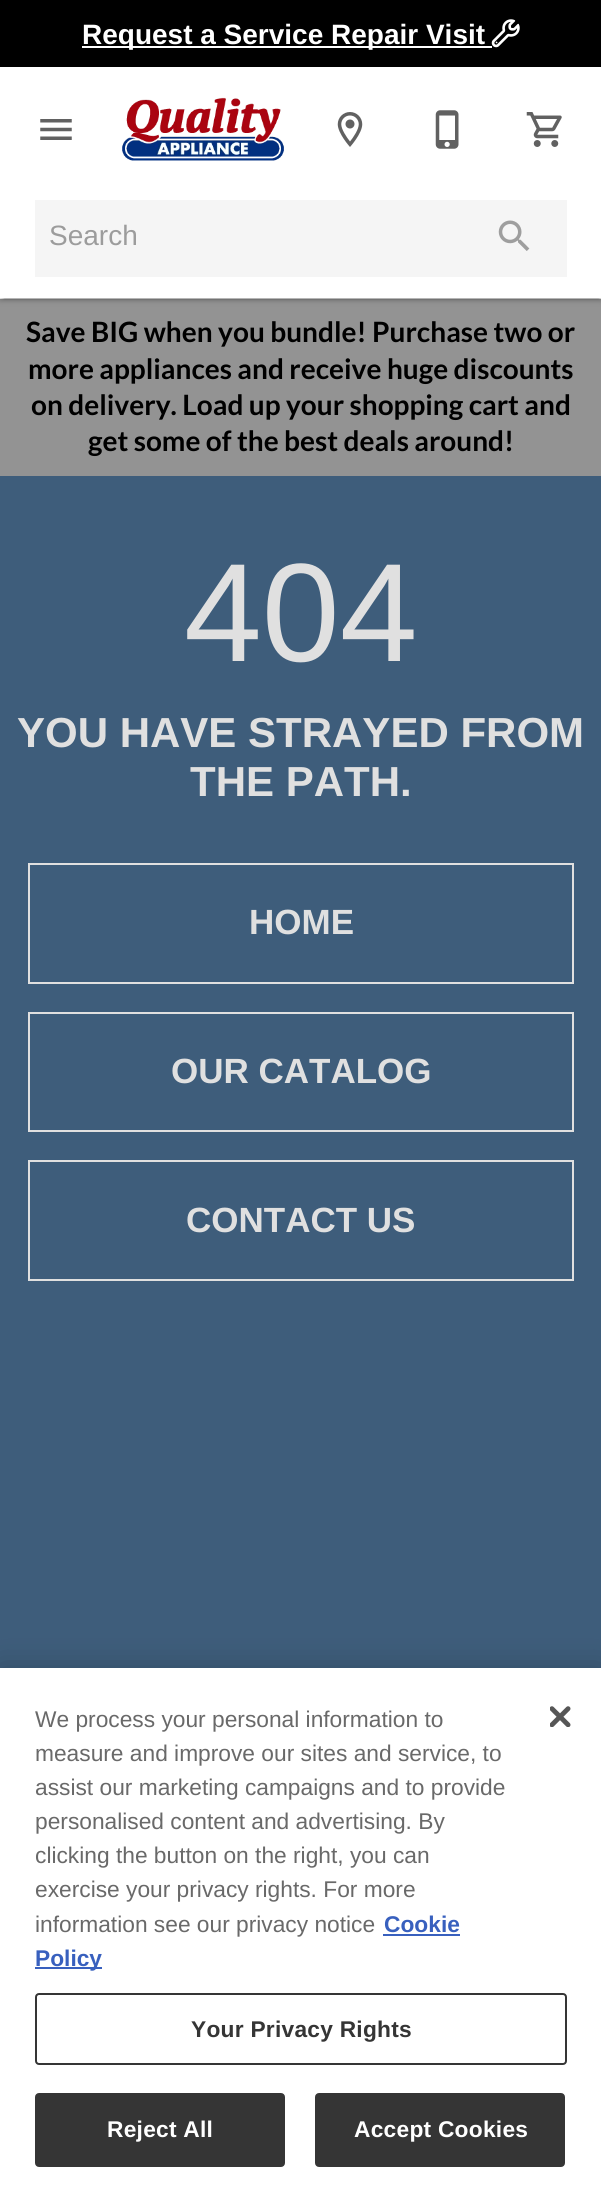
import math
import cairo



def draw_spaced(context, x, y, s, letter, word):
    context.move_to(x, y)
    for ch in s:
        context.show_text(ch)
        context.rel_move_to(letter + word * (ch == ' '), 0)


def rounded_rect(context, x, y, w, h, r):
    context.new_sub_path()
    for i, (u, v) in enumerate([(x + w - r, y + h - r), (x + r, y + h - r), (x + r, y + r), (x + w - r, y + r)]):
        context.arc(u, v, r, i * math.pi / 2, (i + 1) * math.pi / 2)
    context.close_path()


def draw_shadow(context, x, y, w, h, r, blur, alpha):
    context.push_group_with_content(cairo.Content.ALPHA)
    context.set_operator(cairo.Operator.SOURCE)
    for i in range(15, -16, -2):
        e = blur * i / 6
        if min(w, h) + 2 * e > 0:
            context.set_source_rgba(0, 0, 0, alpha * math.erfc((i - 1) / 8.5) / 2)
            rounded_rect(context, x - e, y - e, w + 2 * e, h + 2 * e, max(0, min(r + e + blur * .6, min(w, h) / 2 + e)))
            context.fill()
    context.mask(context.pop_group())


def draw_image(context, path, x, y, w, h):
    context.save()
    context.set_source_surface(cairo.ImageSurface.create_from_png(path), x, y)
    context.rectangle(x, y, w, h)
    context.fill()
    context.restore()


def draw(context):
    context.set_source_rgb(1, 1, 1)
    context.paint()
    context.set_source_rgb(0, 0, 0)
    context.rectangle(0, 0, 601, 67)
    context.fill()
    context.set_source_rgb(1, 1, 1)
    context.rectangle(82, 46, 410, 2)
    context.fill()
    draw_image(context, "images/1.png", 491, 19, 29, 29)
    context.set_source_rgb(147 / 255, 147 / 255, 147 / 255)
    context.rectangle(0, 299, 601, 177)
    context.fill()
    context.set_source_rgb(0, 0, 0)
    draw_shadow(context, 0, 68, 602, 231, 0, 4.5, 0.12)
    draw_shadow(context, 0, 70, 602, 231, 0, 2, 0.14)
    draw_shadow(context, 4, 75, 595, 224, 0, 1, 0.2)
    context.set_source_rgb(1, 1, 1)
    context.rectangle(0, 67, 601, 231)
    context.fill()
    draw_image(context, "images/2.png", 40, 119, 32, 21)
    draw_image(context, "images/3.png", 122, 97, 162, 64)
    draw_image(context, "images/4.png", 337, 112, 26, 35)
    draw_image(context, "images/5.png", 435, 110, 24, 39)
    draw_image(context, "images/6.png", 526, 112, 36, 35)
    context.set_source_rgb(245 / 255, 245 / 255, 245 / 255)
    context.rectangle(35, 200, 532, 77)
    context.fill()
    draw_image(context, "images/7.png", 498, 220, 32, 31)
    context.set_source_rgb(62 / 255, 93 / 255, 123 / 255)
    context.rectangle(0, 476, 601, 1192)
    context.fill()
    context.rectangle(29, 864, 544, 119)
    context.set_source_rgb(224 / 255, 224 / 255, 224 / 255)
    context.stroke()
    context.rectangle(29, 1013, 544, 118)
    context.stroke()
    context.rectangle(29, 1161, 544, 119)
    context.stroke()
    context.set_source_rgb(0, 0, 0)
    draw_shadow(context, 0, 1668, 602, 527, 0, 16, 0.2)
    context.set_source_rgb(1, 1, 1)
    context.rectangle(0, 1668, 601, 526)
    context.fill()
    context.set_source_rgb(56 / 255, 96 / 255, 190 / 255)
    context.rectangle(383, 1934, 77, 2)
    context.fill()
    context.rectangle(35, 1967, 67, 2)
    context.fill()
    rounded_rect(context, 36, 1994, 530, 70, 3)
    context.set_source_rgb(53 / 255, 53 / 255, 53 / 255)
    context.stroke()
    rounded_rect(context, 36, 2094, 248, 72, 3)
    context.fill_preserve()
    context.stroke()
    rounded_rect(context, 316, 2094, 248, 72, 3)
    context.fill_preserve()
    context.stroke()
    draw_image(context, "images/8.png", 550, 1706, 21, 21)
    context.select_font_face("Liberation Sans", cairo.FontSlant.NORMAL, cairo.FontWeight.BOLD)
    context.set_font_size(28)
    context.set_source_rgb(1, 1, 1)
    context.move_to(82, 44)
    context.show_text("Request a Service Repair Visit")
    context.select_font_face("Liberation Sans")
    context.set_source_rgb(156 / 255, 156 / 255, 156 / 255)
    context.move_to(49, 245)
    context.show_text("Search")
    context.select_font_face("Lato", cairo.FontSlant.NORMAL, cairo.FontWeight.BOLD)
    context.set_source_rgb(0, 0, 0)
    context.move_to(26, 342)
    context.show_text("Save BIG when you bundle! Purchase two or")
    context.move_to(28, 379)
    context.show_text("more appliances and receive huge discounts")
    context.move_to(31, 415)
    context.show_text("on delivery. Load up your shopping cart and")
    context.move_to(88, 451)
    context.show_text("get some of the best deals around!")
    context.select_font_face("Liberation Sans")
    context.set_font_size(140)
    context.set_source_rgb(224 / 255, 224 / 255, 224 / 255)
    context.move_to(184, 661)
    context.show_text("404")
    context.select_font_face("Liberation Sans", cairo.FontSlant.NORMAL, cairo.FontWeight.BOLD)
    context.set_font_size(42)
    context.move_to(17, 747)
    context.show_text("YOU HAVE STRAYED FROM")
    context.move_to(190, 796)
    context.show_text("THE PATH.")
    context.set_font_size(35)
    context.move_to(249, 934)
    context.show_text("HOME")
    context.move_to(171, 1083)
    context.show_text("OUR CATALOG")
    context.move_to(186, 1232)
    context.show_text("CONTACT US")
    context.select_font_face("Liberation Sans")
    context.set_font_size(22.75)
    context.set_source_rgb(105 / 255, 105 / 255, 105 / 255)
    context.move_to(35, 1727)
    context.show_text("We process your personal information to")
    context.move_to(35, 1761)
    context.show_text("measure and improve our sites and service, to")
    context.move_to(35, 1795)
    context.show_text("assist our marketing campaigns and to provide")
    context.move_to(35, 1829)
    context.show_text("personalised content and advertising. By")
    context.move_to(35, 1863)
    context.show_text("clicking the button on the right, you can")
    context.move_to(35, 1897)
    context.show_text("exercise your privacy rights. For more")
    context.move_to(35, 1932)
    context.show_text("information see our privacy notice")
    context.select_font_face("Liberation Sans", cairo.FontSlant.NORMAL, cairo.FontWeight.BOLD)
    context.set_source_rgb(56 / 255, 96 / 255, 190 / 255)
    context.move_to(384, 1932)
    context.show_text("Cookie")
    context.move_to(35, 1966)
    context.show_text("Policy")
    context.set_source_rgb(53 / 255, 53 / 255, 53 / 255)
    draw_spaced(context, 191, 2037, "Your Privacy Rights", 0.25, 0)
    context.set_source_rgb(1, 1, 1)
    draw_spaced(context, 107, 2137, "Reject All", 0.25, 0)
    draw_spaced(context, 354, 2137, "Accept Cookies", 0.25, 0)


surface = cairo.ImageSurface(cairo.Format.RGB24, 601, 2194)
context = cairo.Context(surface)
options = cairo.FontOptions()
options.set_hint_metrics(cairo.HintMetrics.OFF)
options.set_hint_style(cairo.HintStyle.NONE)
context.set_font_options(options)
context.set_miter_limit(4)
draw(context)
surface.write_to_png("out.png")
